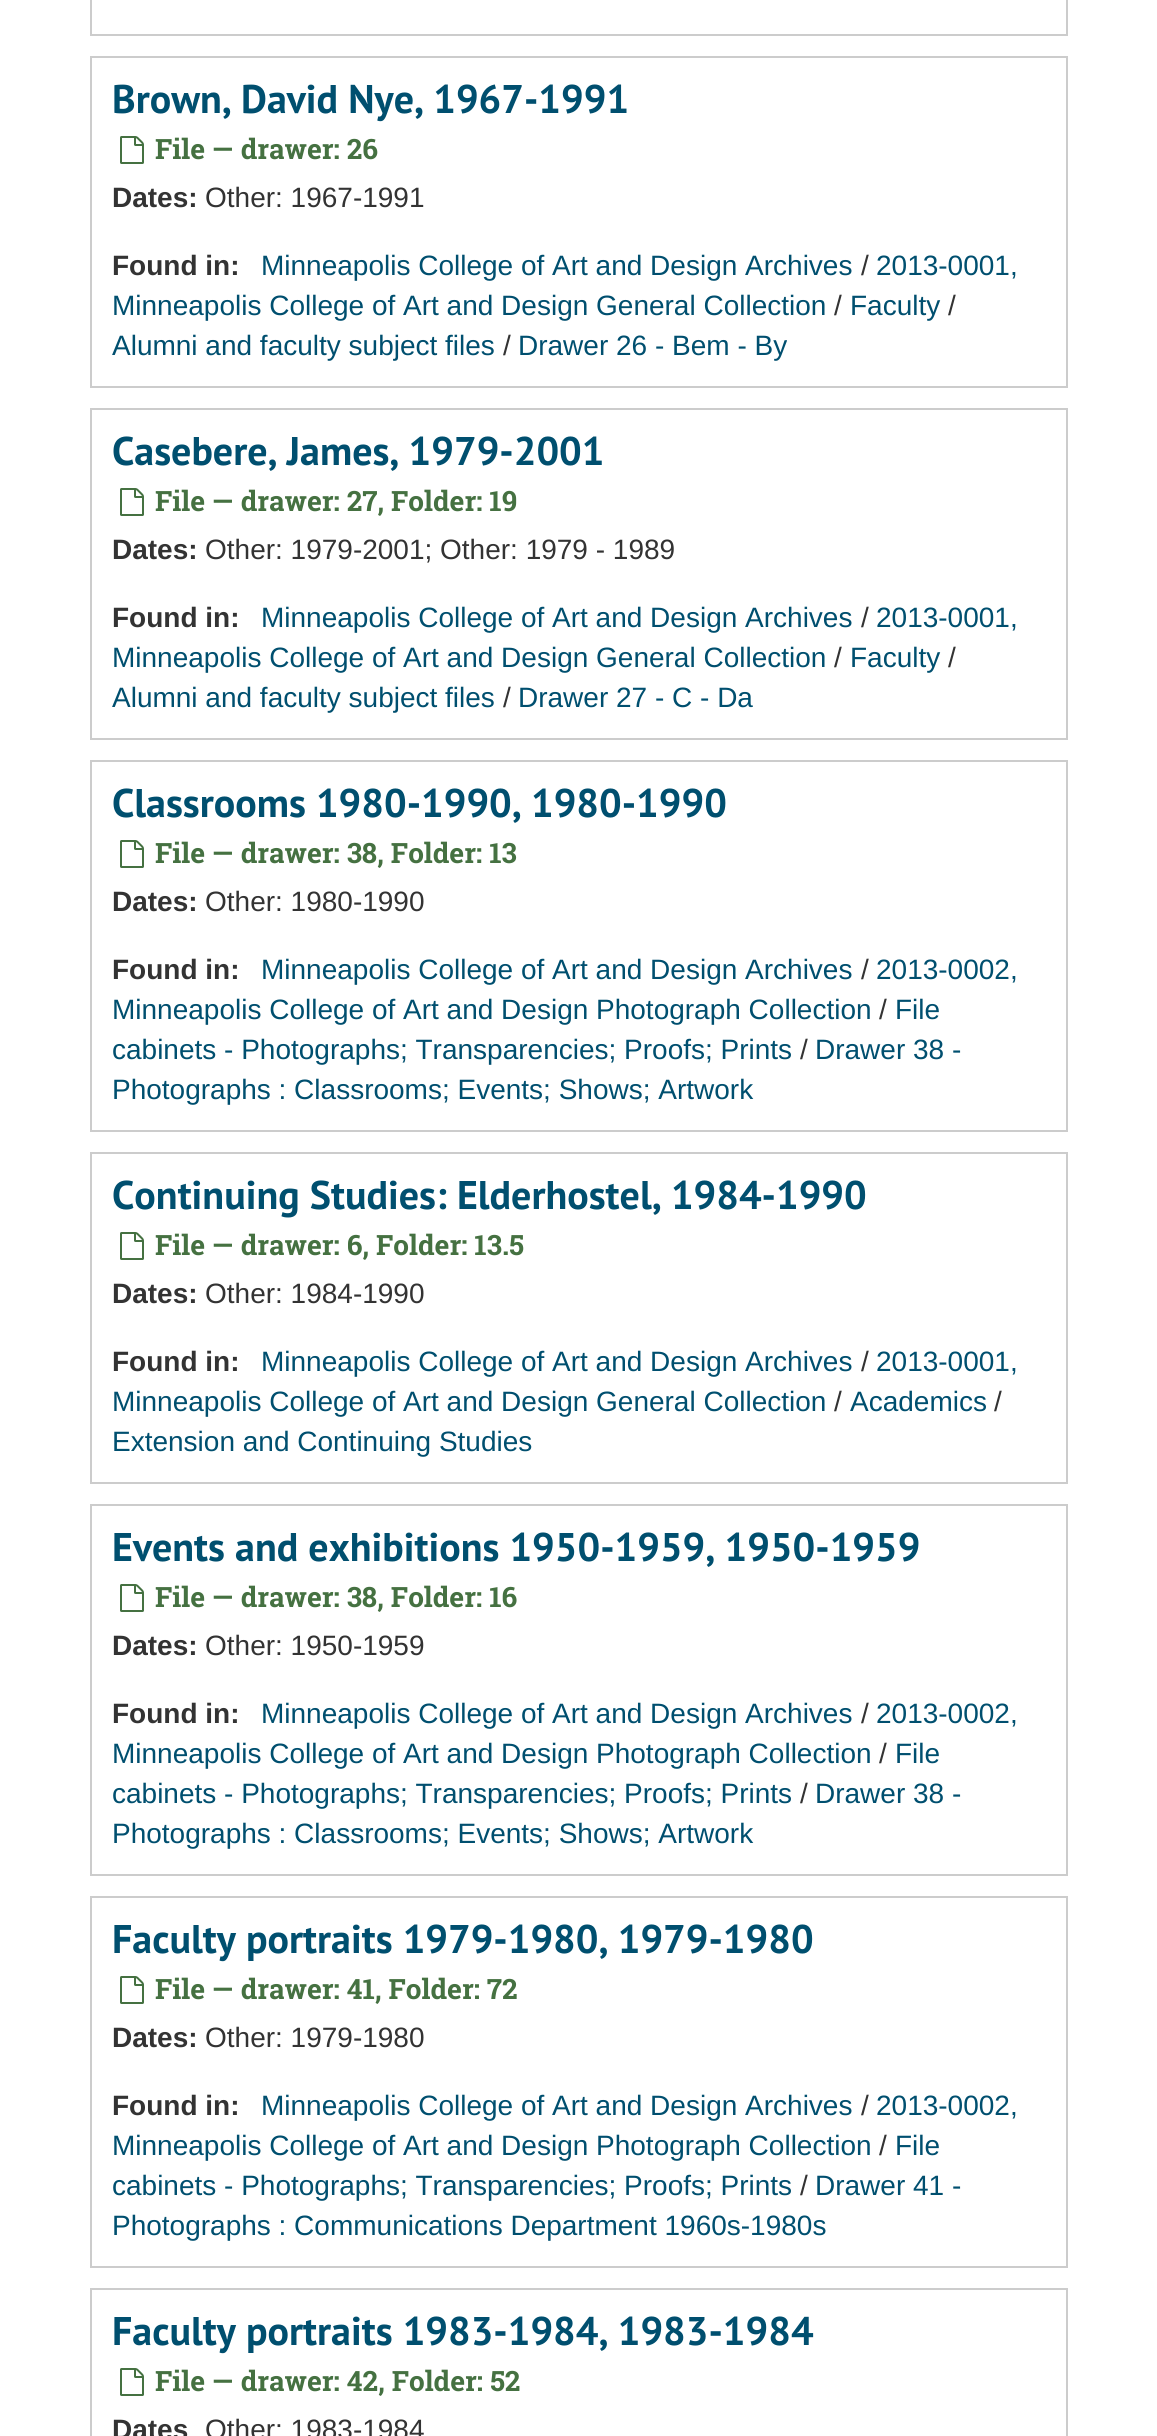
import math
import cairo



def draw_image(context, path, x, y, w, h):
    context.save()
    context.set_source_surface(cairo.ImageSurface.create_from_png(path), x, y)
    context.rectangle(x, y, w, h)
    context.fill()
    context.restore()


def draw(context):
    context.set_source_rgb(1, 1, 1)
    context.paint()
    context.rectangle(91, -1, 976, 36)
    context.set_source_rgb(204 / 255, 204 / 255, 204 / 255)
    context.stroke()
    context.rectangle(91, 57, 976, 330)
    context.stroke()
    draw_image(context, "images/1.png", 120, 136, 24, 28)
    context.rectangle(91, 409, 976, 330)
    context.stroke()
    draw_image(context, "images/1.png", 120, 488, 24, 28)
    context.rectangle(91, 761, 976, 370)
    context.stroke()
    draw_image(context, "images/1.png", 120, 840, 24, 28)
    context.rectangle(91, 1153, 976, 330)
    context.stroke()
    draw_image(context, "images/1.png", 120, 1232, 24, 28)
    context.rectangle(91, 1505, 976, 370)
    context.stroke()
    draw_image(context, "images/1.png", 120, 1584, 24, 28)
    context.rectangle(91, 1897, 976, 370)
    context.stroke()
    draw_image(context, "images/1.png", 120, 1976, 24, 28)
    context.rectangle(91, 2289, 976, 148)
    context.stroke()
    draw_image(context, "images/1.png", 120, 2368, 24, 28)
    context.select_font_face("PT Sans", cairo.FontSlant.NORMAL, cairo.FontWeight.BOLD)
    context.set_font_size(40)
    context.set_source_rgb(0, 79 / 255, 111 / 255)
    context.move_to(112, 113)
    context.show_text("Brown, David Nye, 1967-1991")
    context.select_font_face("Roboto Slab", cairo.FontSlant.NORMAL, cairo.FontWeight.BOLD)
    context.set_font_size(28)
    context.set_source_rgb(69 / 255, 113 / 255, 65 / 255)
    context.move_to(155, 159)
    context.show_text("File — drawer: 26")
    context.select_font_face("Liberation Sans", cairo.FontSlant.NORMAL, cairo.FontWeight.BOLD)
    context.set_source_rgb(51 / 255, 51 / 255, 51 / 255)
    context.move_to(112, 207)
    context.show_text("Dates:")
    context.select_font_face("Liberation Sans")
    context.move_to(205, 207)
    context.show_text("Other: 1967-1991")
    context.select_font_face("Liberation Sans", cairo.FontSlant.NORMAL, cairo.FontWeight.BOLD)
    context.move_to(112, 275)
    context.show_text("Found in:")
    context.select_font_face("Liberation Sans")
    context.set_source_rgb(0, 79 / 255, 111 / 255)
    context.move_to(261, 275)
    context.show_text("Minneapolis College of Art and Design Archives")
    context.set_source_rgb(51 / 255, 51 / 255, 51 / 255)
    context.move_to(861, 275)
    context.show_text("/")
    context.set_source_rgb(0, 79 / 255, 111 / 255)
    context.move_to(876, 275)
    context.show_text("2013-0001,")
    context.move_to(112, 315)
    context.show_text("Minneapolis College of Art and Design General Collection")
    context.set_source_rgb(51 / 255, 51 / 255, 51 / 255)
    context.move_to(834, 315)
    context.show_text("/")
    context.set_source_rgb(0, 79 / 255, 111 / 255)
    context.move_to(850, 315)
    context.show_text("Faculty")
    context.set_source_rgb(51 / 255, 51 / 255, 51 / 255)
    context.move_to(948, 315)
    context.show_text("/")
    context.set_source_rgb(0, 79 / 255, 111 / 255)
    context.move_to(112, 355)
    context.show_text("Alumni and faculty subject files")
    context.set_source_rgb(51 / 255, 51 / 255, 51 / 255)
    context.move_to(503, 355)
    context.show_text("/")
    context.set_source_rgb(0, 79 / 255, 111 / 255)
    context.move_to(518, 355)
    context.show_text("Drawer 26 - Bem - By")
    context.select_font_face("PT Sans", cairo.FontSlant.NORMAL, cairo.FontWeight.BOLD)
    context.set_font_size(40)
    context.move_to(112, 465)
    context.show_text("Casebere, James, 1979-2001")
    context.select_font_face("Roboto Slab", cairo.FontSlant.NORMAL, cairo.FontWeight.BOLD)
    context.set_font_size(28)
    context.set_source_rgb(69 / 255, 113 / 255, 65 / 255)
    context.move_to(155, 511)
    context.show_text("File — drawer: 27, Folder: 19")
    context.select_font_face("Liberation Sans", cairo.FontSlant.NORMAL, cairo.FontWeight.BOLD)
    context.set_source_rgb(51 / 255, 51 / 255, 51 / 255)
    context.move_to(112, 559)
    context.show_text("Dates:")
    context.select_font_face("Liberation Sans")
    context.move_to(205, 559)
    context.show_text("Other: 1979-2001; Other: 1979 - 1989")
    context.select_font_face("Liberation Sans", cairo.FontSlant.NORMAL, cairo.FontWeight.BOLD)
    context.move_to(112, 627)
    context.show_text("Found in:")
    context.select_font_face("Liberation Sans")
    context.set_source_rgb(0, 79 / 255, 111 / 255)
    context.move_to(261, 627)
    context.show_text("Minneapolis College of Art and Design Archives")
    context.set_source_rgb(51 / 255, 51 / 255, 51 / 255)
    context.move_to(861, 627)
    context.show_text("/")
    context.set_source_rgb(0, 79 / 255, 111 / 255)
    context.move_to(876, 627)
    context.show_text("2013-0001,")
    context.move_to(112, 667)
    context.show_text("Minneapolis College of Art and Design General Collection")
    context.set_source_rgb(51 / 255, 51 / 255, 51 / 255)
    context.move_to(834, 667)
    context.show_text("/")
    context.set_source_rgb(0, 79 / 255, 111 / 255)
    context.move_to(850, 667)
    context.show_text("Faculty")
    context.set_source_rgb(51 / 255, 51 / 255, 51 / 255)
    context.move_to(948, 667)
    context.show_text("/")
    context.set_source_rgb(0, 79 / 255, 111 / 255)
    context.move_to(112, 707)
    context.show_text("Alumni and faculty subject files")
    context.set_source_rgb(51 / 255, 51 / 255, 51 / 255)
    context.move_to(503, 707)
    context.show_text("/")
    context.set_source_rgb(0, 79 / 255, 111 / 255)
    context.move_to(518, 707)
    context.show_text("Drawer 27 - C - Da")
    context.select_font_face("PT Sans", cairo.FontSlant.NORMAL, cairo.FontWeight.BOLD)
    context.set_font_size(40)
    context.move_to(112, 817)
    context.show_text("Classrooms 1980-1990, 1980-1990")
    context.select_font_face("Roboto Slab", cairo.FontSlant.NORMAL, cairo.FontWeight.BOLD)
    context.set_font_size(28)
    context.set_source_rgb(69 / 255, 113 / 255, 65 / 255)
    context.move_to(155, 863)
    context.show_text("File — drawer: 38, Folder: 13")
    context.select_font_face("Liberation Sans", cairo.FontSlant.NORMAL, cairo.FontWeight.BOLD)
    context.set_source_rgb(51 / 255, 51 / 255, 51 / 255)
    context.move_to(112, 911)
    context.show_text("Dates:")
    context.select_font_face("Liberation Sans")
    context.move_to(205, 911)
    context.show_text("Other: 1980-1990")
    context.select_font_face("Liberation Sans", cairo.FontSlant.NORMAL, cairo.FontWeight.BOLD)
    context.move_to(112, 979)
    context.show_text("Found in:")
    context.select_font_face("Liberation Sans")
    context.set_source_rgb(0, 79 / 255, 111 / 255)
    context.move_to(261, 979)
    context.show_text("Minneapolis College of Art and Design Archives")
    context.set_source_rgb(51 / 255, 51 / 255, 51 / 255)
    context.move_to(861, 979)
    context.show_text("/")
    context.set_source_rgb(0, 79 / 255, 111 / 255)
    context.move_to(876, 979)
    context.show_text("2013-0002,")
    context.move_to(112, 1019)
    context.show_text("Minneapolis College of Art and Design Photograph Collection")
    context.set_source_rgb(51 / 255, 51 / 255, 51 / 255)
    context.move_to(879, 1019)
    context.show_text("/")
    context.set_source_rgb(0, 79 / 255, 111 / 255)
    context.move_to(895, 1019)
    context.show_text("File")
    context.move_to(112, 1059)
    context.show_text("cabinets - Photographs; Transparencies; Proofs; Prints")
    context.set_source_rgb(51 / 255, 51 / 255, 51 / 255)
    context.move_to(800, 1059)
    context.show_text("/")
    context.set_source_rgb(0, 79 / 255, 111 / 255)
    context.move_to(815, 1059)
    context.show_text("Drawer 38 -")
    context.move_to(112, 1099)
    context.show_text("Photographs : Classrooms; Events; Shows; Artwork")
    context.select_font_face("PT Sans", cairo.FontSlant.NORMAL, cairo.FontWeight.BOLD)
    context.set_font_size(40)
    context.move_to(112, 1209)
    context.show_text("Continuing Studies: Elderhostel, 1984-1990")
    context.select_font_face("Roboto Slab", cairo.FontSlant.NORMAL, cairo.FontWeight.BOLD)
    context.set_font_size(28)
    context.set_source_rgb(69 / 255, 113 / 255, 65 / 255)
    context.move_to(155, 1255)
    context.show_text("File — drawer: 6, Folder: 13.5")
    context.select_font_face("Liberation Sans", cairo.FontSlant.NORMAL, cairo.FontWeight.BOLD)
    context.set_source_rgb(51 / 255, 51 / 255, 51 / 255)
    context.move_to(112, 1303)
    context.show_text("Dates:")
    context.select_font_face("Liberation Sans")
    context.move_to(205, 1303)
    context.show_text("Other: 1984-1990")
    context.select_font_face("Liberation Sans", cairo.FontSlant.NORMAL, cairo.FontWeight.BOLD)
    context.move_to(112, 1371)
    context.show_text("Found in:")
    context.select_font_face("Liberation Sans")
    context.set_source_rgb(0, 79 / 255, 111 / 255)
    context.move_to(261, 1371)
    context.show_text("Minneapolis College of Art and Design Archives")
    context.set_source_rgb(51 / 255, 51 / 255, 51 / 255)
    context.move_to(861, 1371)
    context.show_text("/")
    context.set_source_rgb(0, 79 / 255, 111 / 255)
    context.move_to(876, 1371)
    context.show_text("2013-0001,")
    context.move_to(112, 1411)
    context.show_text("Minneapolis College of Art and Design General Collection")
    context.set_source_rgb(51 / 255, 51 / 255, 51 / 255)
    context.move_to(834, 1411)
    context.show_text("/")
    context.set_source_rgb(0, 79 / 255, 111 / 255)
    context.move_to(850, 1411)
    context.show_text("Academics")
    context.set_source_rgb(51 / 255, 51 / 255, 51 / 255)
    context.move_to(994, 1411)
    context.show_text("/")
    context.set_source_rgb(0, 79 / 255, 111 / 255)
    context.move_to(112, 1451)
    context.show_text("Extension and Continuing Studies")
    context.select_font_face("PT Sans", cairo.FontSlant.NORMAL, cairo.FontWeight.BOLD)
    context.set_font_size(40)
    context.move_to(112, 1561)
    context.show_text("Events and exhibitions 1950-1959, 1950-1959")
    context.select_font_face("Roboto Slab", cairo.FontSlant.NORMAL, cairo.FontWeight.BOLD)
    context.set_font_size(28)
    context.set_source_rgb(69 / 255, 113 / 255, 65 / 255)
    context.move_to(155, 1607)
    context.show_text("File — drawer: 38, Folder: 16")
    context.select_font_face("Liberation Sans", cairo.FontSlant.NORMAL, cairo.FontWeight.BOLD)
    context.set_source_rgb(51 / 255, 51 / 255, 51 / 255)
    context.move_to(112, 1655)
    context.show_text("Dates:")
    context.select_font_face("Liberation Sans")
    context.move_to(205, 1655)
    context.show_text("Other: 1950-1959")
    context.select_font_face("Liberation Sans", cairo.FontSlant.NORMAL, cairo.FontWeight.BOLD)
    context.move_to(112, 1723)
    context.show_text("Found in:")
    context.select_font_face("Liberation Sans")
    context.set_source_rgb(0, 79 / 255, 111 / 255)
    context.move_to(261, 1723)
    context.show_text("Minneapolis College of Art and Design Archives")
    context.set_source_rgb(51 / 255, 51 / 255, 51 / 255)
    context.move_to(861, 1723)
    context.show_text("/")
    context.set_source_rgb(0, 79 / 255, 111 / 255)
    context.move_to(876, 1723)
    context.show_text("2013-0002,")
    context.move_to(112, 1763)
    context.show_text("Minneapolis College of Art and Design Photograph Collection")
    context.set_source_rgb(51 / 255, 51 / 255, 51 / 255)
    context.move_to(879, 1763)
    context.show_text("/")
    context.set_source_rgb(0, 79 / 255, 111 / 255)
    context.move_to(895, 1763)
    context.show_text("File")
    context.move_to(112, 1803)
    context.show_text("cabinets - Photographs; Transparencies; Proofs; Prints")
    context.set_source_rgb(51 / 255, 51 / 255, 51 / 255)
    context.move_to(800, 1803)
    context.show_text("/")
    context.set_source_rgb(0, 79 / 255, 111 / 255)
    context.move_to(815, 1803)
    context.show_text("Drawer 38 -")
    context.move_to(112, 1843)
    context.show_text("Photographs : Classrooms; Events; Shows; Artwork")
    context.select_font_face("PT Sans", cairo.FontSlant.NORMAL, cairo.FontWeight.BOLD)
    context.set_font_size(40)
    context.move_to(112, 1953)
    context.show_text("Faculty portraits 1979-1980, 1979-1980")
    context.select_font_face("Roboto Slab", cairo.FontSlant.NORMAL, cairo.FontWeight.BOLD)
    context.set_font_size(28)
    context.set_source_rgb(69 / 255, 113 / 255, 65 / 255)
    context.move_to(155, 1999)
    context.show_text("File — drawer: 41, Folder: 72")
    context.select_font_face("Liberation Sans", cairo.FontSlant.NORMAL, cairo.FontWeight.BOLD)
    context.set_source_rgb(51 / 255, 51 / 255, 51 / 255)
    context.move_to(112, 2047)
    context.show_text("Dates:")
    context.select_font_face("Liberation Sans")
    context.move_to(205, 2047)
    context.show_text("Other: 1979-1980")
    context.select_font_face("Liberation Sans", cairo.FontSlant.NORMAL, cairo.FontWeight.BOLD)
    context.move_to(112, 2115)
    context.show_text("Found in:")
    context.select_font_face("Liberation Sans")
    context.set_source_rgb(0, 79 / 255, 111 / 255)
    context.move_to(261, 2115)
    context.show_text("Minneapolis College of Art and Design Archives")
    context.set_source_rgb(51 / 255, 51 / 255, 51 / 255)
    context.move_to(861, 2115)
    context.show_text("/")
    context.set_source_rgb(0, 79 / 255, 111 / 255)
    context.move_to(876, 2115)
    context.show_text("2013-0002,")
    context.move_to(112, 2155)
    context.show_text("Minneapolis College of Art and Design Photograph Collection")
    context.set_source_rgb(51 / 255, 51 / 255, 51 / 255)
    context.move_to(879, 2155)
    context.show_text("/")
    context.set_source_rgb(0, 79 / 255, 111 / 255)
    context.move_to(895, 2155)
    context.show_text("File")
    context.move_to(112, 2195)
    context.show_text("cabinets - Photographs; Transparencies; Proofs; Prints")
    context.set_source_rgb(51 / 255, 51 / 255, 51 / 255)
    context.move_to(800, 2195)
    context.show_text("/")
    context.set_source_rgb(0, 79 / 255, 111 / 255)
    context.move_to(815, 2195)
    context.show_text("Drawer 41 -")
    context.move_to(112, 2235)
    context.show_text("Photographs : Communications Department 1960s-1980s")
    context.select_font_face("PT Sans", cairo.FontSlant.NORMAL, cairo.FontWeight.BOLD)
    context.set_font_size(40)
    context.move_to(112, 2345)
    context.show_text("Faculty portraits 1983-1984, 1983-1984")
    context.select_font_face("Roboto Slab", cairo.FontSlant.NORMAL, cairo.FontWeight.BOLD)
    context.set_font_size(28)
    context.set_source_rgb(69 / 255, 113 / 255, 65 / 255)
    context.move_to(155, 2391)
    context.show_text("File — drawer: 42, Folder: 52")
    context.select_font_face("Liberation Sans", cairo.FontSlant.NORMAL, cairo.FontWeight.BOLD)
    context.set_source_rgb(51 / 255, 51 / 255, 51 / 255)
    context.move_to(112, 2439)
    context.show_text("Dates")
    context.select_font_face("Liberation Sans")
    context.move_to(205, 2439)
    context.show_text("Other: 1983-1984")


surface = cairo.ImageSurface(cairo.Format.RGB24, 1157, 2436)
context = cairo.Context(surface)
options = cairo.FontOptions()
options.set_hint_metrics(cairo.HintMetrics.OFF)
options.set_hint_style(cairo.HintStyle.NONE)
context.set_font_options(options)
context.set_miter_limit(4)
draw(context)
surface.write_to_png("out.png")
